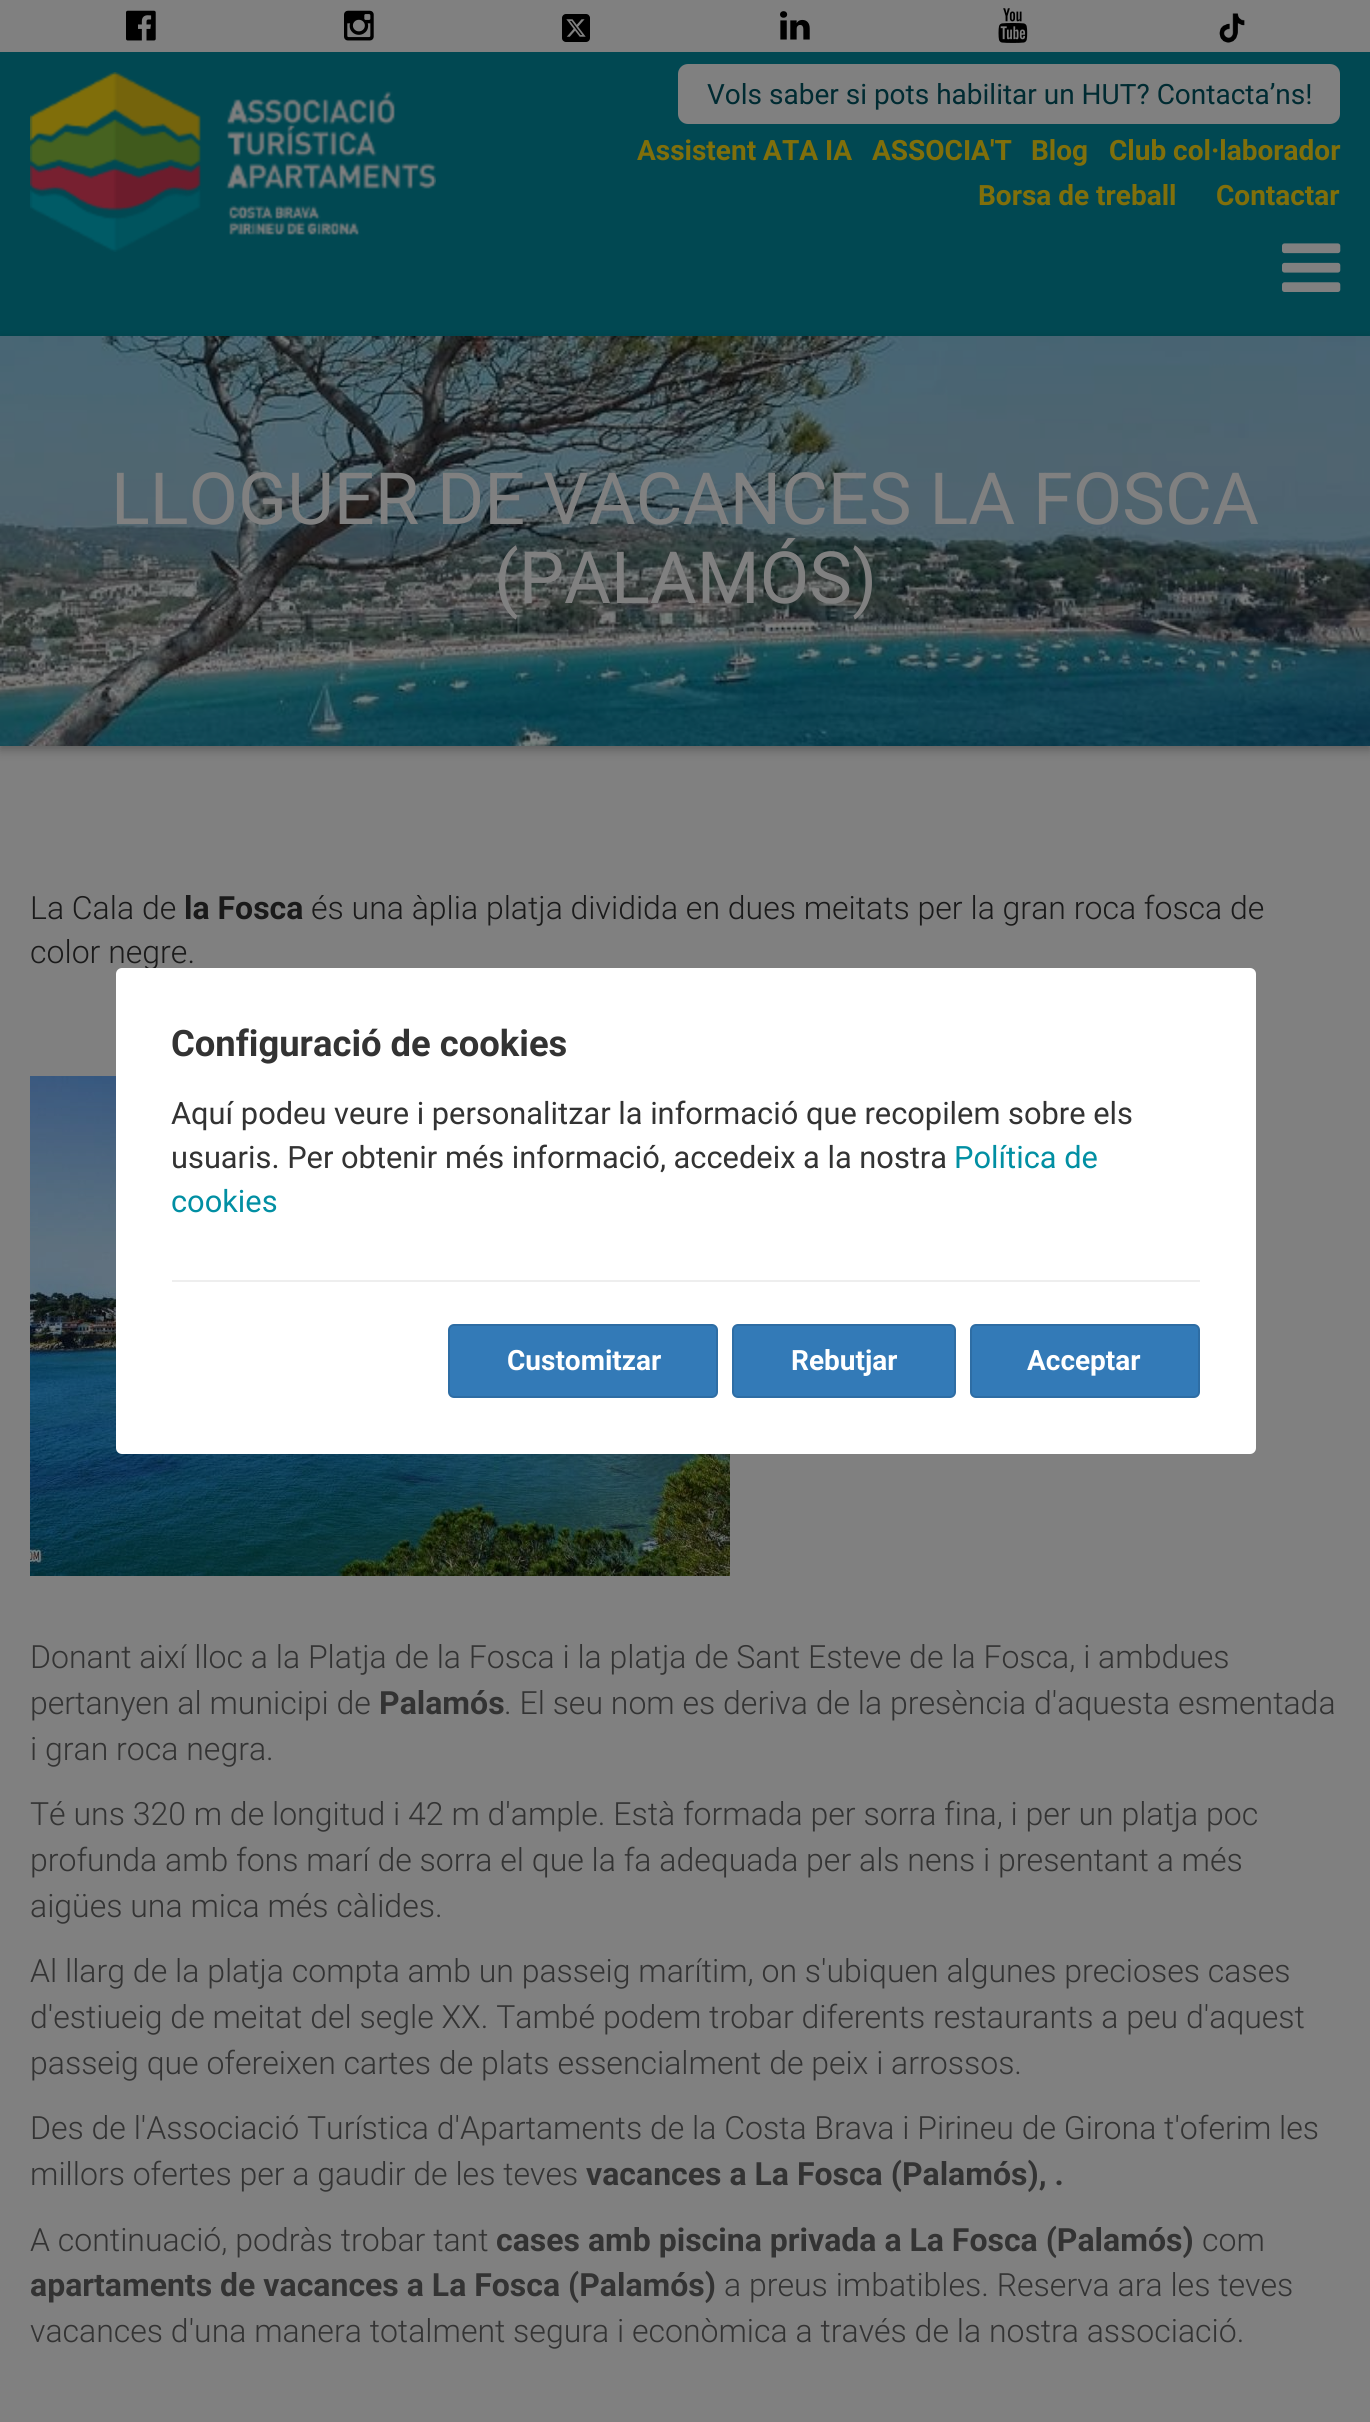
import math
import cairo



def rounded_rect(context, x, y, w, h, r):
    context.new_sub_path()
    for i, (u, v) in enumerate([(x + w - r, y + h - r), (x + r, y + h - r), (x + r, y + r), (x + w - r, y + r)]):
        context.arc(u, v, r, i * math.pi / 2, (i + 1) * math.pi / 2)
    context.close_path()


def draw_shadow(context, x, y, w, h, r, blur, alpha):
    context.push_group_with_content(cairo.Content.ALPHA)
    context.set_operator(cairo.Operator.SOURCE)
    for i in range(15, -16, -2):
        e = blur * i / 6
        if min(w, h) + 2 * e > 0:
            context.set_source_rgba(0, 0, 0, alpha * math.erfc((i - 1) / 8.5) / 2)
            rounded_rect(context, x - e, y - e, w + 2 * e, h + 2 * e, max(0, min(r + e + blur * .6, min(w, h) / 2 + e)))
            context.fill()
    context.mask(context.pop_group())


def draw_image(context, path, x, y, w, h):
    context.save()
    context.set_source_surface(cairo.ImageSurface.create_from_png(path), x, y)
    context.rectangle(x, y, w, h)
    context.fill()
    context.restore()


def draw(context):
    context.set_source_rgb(128 / 255, 128 / 255, 128 / 255)
    context.paint()
    draw_image(context, "images/1.png", 126, 10, 30, 31)
    draw_image(context, "images/2.png", 344, 10, 30, 31)
    draw_image(context, "images/3.png", 562, 14, 28, 28)
    draw_image(context, "images/4.png", 780, 11, 30, 29)
    draw_image(context, "images/5.png", 998, 8, 30, 35)
    draw_image(context, "images/6.png", 1219, 13, 26, 30)
    context.set_source_rgb(1 / 255, 72 / 255, 82 / 255)
    context.rectangle(0, 52, 1370, 284)
    context.fill()
    draw_image(context, "images/7.png", 30, 72, 406, 180)
    context.set_source_rgb(128 / 255, 128 / 255, 128 / 255)
    rounded_rect(context, 678, 64, 662, 60, 10)
    context.fill()
    draw_image(context, "images/8.png", 1282, 243, 59, 49)
    context.set_source_rgb(0, 0, 0)
    draw_shadow(context, 0, 340, 1370, 410, 0, 5, 0.26)
    draw_image(context, "images/9.png", 0, 336, 1370, 410)
    draw_image(context, "images/10.png", 30, 1076, 700, 500)
    context.select_font_face("Roboto")
    context.set_font_size(28)
    context.set_source_rgb(0, 43 / 255, 50 / 255)
    context.move_to(707, 104)
    context.show_text("Vols saber si pots habilitar un HUT? Contacta’ns!")
    context.select_font_face("Roboto", cairo.FontSlant.NORMAL, cairo.FontWeight.BOLD)
    context.set_source_rgb(128 / 255, 111 / 255, 11 / 255)
    context.move_to(637, 160)
    context.show_text("Assistent ATA IA")
    context.move_to(872, 160)
    context.show_text("ASSOCIA'T")
    context.move_to(1031, 160)
    context.show_text("Blog")
    context.move_to(1109, 160)
    context.show_text("Club col·laborador")
    context.move_to(978, 205)
    context.show_text("Borsa de treball")
    context.move_to(1216, 205)
    context.show_text("Contactar")
    context.select_font_face("Roboto")
    context.set_font_size(72)
    context.set_source_rgb(128 / 255, 128 / 255, 128 / 255)
    context.move_to(111, 524)
    context.show_text("LLOGUER DE VACANCES LA FOSCA")
    context.move_to(494, 603)
    context.show_text("(PALAMÓS)")
    context.select_font_face("Roboto Light")
    context.set_font_size(32)
    context.set_source_rgb(26 / 255, 26 / 255, 26 / 255)
    context.move_to(30, 919)
    context.show_text("La Cala de")
    context.select_font_face("Roboto", cairo.FontSlant.NORMAL, cairo.FontWeight.BOLD)
    context.move_to(184, 919)
    context.show_text("la Fosca")
    context.select_font_face("Roboto Light")
    context.move_to(311, 919)
    context.show_text("és una àplia platja dividida en dues meitats per la gran roca fosca de")
    context.move_to(30, 963)
    context.show_text("color negre.")
    context.set_source_rgb(51 / 255, 51 / 255, 51 / 255)
    context.move_to(30, 1668)
    context.show_text("Donant així lloc a la Platja de la Fosca i la platja de Sant Esteve de la Fosca, i ambdues")
    context.move_to(30, 1714)
    context.show_text("pertanyen al municipi de")
    context.select_font_face("Roboto", cairo.FontSlant.NORMAL, cairo.FontWeight.BOLD)
    context.move_to(379, 1714)
    context.show_text("Palamós")
    context.select_font_face("Roboto Light")
    context.move_to(504, 1714)
    context.show_text(". El seu nom es deriva de la presència d'aquesta esmentada")
    context.move_to(30, 1760)
    context.show_text("i gran roca negra.")
    context.move_to(30, 1825)
    context.show_text("Té uns 320 m de longitud i 42 m d'ample. Està formada per sorra fina, i per un platja poc")
    context.move_to(30, 1871)
    context.show_text("profunda amb fons marí de sorra el que la fa adequada per als nens i presentant a més")
    context.move_to(30, 1917)
    context.show_text("aigües una mica més càlides.")
    context.move_to(30, 1982)
    context.show_text("Al llarg de la platja compta amb un passeig marítim, on s'ubiquen algunes precioses cases")
    context.move_to(30, 2028)
    context.show_text("d'estiueig de meitat del segle XX. També podem trobar diferents restaurants a peu d'aquest")
    context.move_to(30, 2074)
    context.show_text("passeig que ofereixen cartes de plats essencialment de peix i arrossos.")
    context.move_to(30, 2139)
    context.show_text("Des de l'Associació Turística d'Apartaments de la Costa Brava i Pirineu de Girona t'oferim les")
    context.move_to(30, 2185)
    context.show_text("millors ofertes per a gaudir de les teves")
    context.select_font_face("Roboto", cairo.FontSlant.NORMAL, cairo.FontWeight.BOLD)
    context.move_to(586, 2185)
    context.show_text("vacances a La Fosca (Palamós), .")
    context.select_font_face("Roboto Light")
    context.move_to(30, 2251)
    context.show_text("A continuació, podràs trobar tant")
    context.select_font_face("Roboto", cairo.FontSlant.NORMAL, cairo.FontWeight.BOLD)
    context.move_to(496, 2251)
    context.show_text("cases amb piscina privada a La Fosca (Palamós)")
    context.select_font_face("Roboto Light")
    context.move_to(1202, 2251)
    context.show_text("com")
    context.select_font_face("Roboto", cairo.FontSlant.NORMAL, cairo.FontWeight.BOLD)
    context.move_to(30, 2296)
    context.show_text("apartaments de vacances a La Fosca (Palamós)")
    context.select_font_face("Roboto Light")
    context.move_to(724, 2296)
    context.show_text("a preus imbatibles. Reserva ara les teves")
    context.move_to(30, 2342)
    context.show_text("vacances d'una manera totalment segura i econòmica a través de la nostra associació.")
    context.set_source_rgb(1, 1, 1)
    rounded_rect(context, 116, 968, 1140, 486, 6)
    context.fill()
    context.select_font_face("Roboto", cairo.FontSlant.NORMAL, cairo.FontWeight.BOLD)
    context.set_font_size(36.4)
    context.set_source_rgb(51 / 255, 51 / 255, 51 / 255)
    context.move_to(171, 1056)
    context.show_text("Configuració de cookies")
    context.set_source_rgb(238 / 255, 238 / 255, 238 / 255)
    context.rectangle(172, 1280, 1028, 2)
    context.fill()
    context.select_font_face("Roboto")
    context.set_font_size(30.8)
    context.set_source_rgb(51 / 255, 51 / 255, 51 / 255)
    context.move_to(171, 1124)
    context.show_text("Aquí podeu veure i personalitzar la informació que recopilem sobre els")
    context.move_to(171, 1168)
    context.show_text("usuaris. Per obtenir més informació, accedeix a la nostra")
    context.set_source_rgb(1 / 255, 143 / 255, 163 / 255)
    context.move_to(954, 1168)
    context.show_text("Política de")
    context.move_to(171, 1212)
    context.show_text("cookies")
    context.set_source_rgb(51 / 255, 122 / 255, 183 / 255)
    rounded_rect(context, 449, 1325, 268, 72, 5)
    context.fill_preserve()
    context.set_source_rgb(46 / 255, 109 / 255, 164 / 255)
    context.stroke()
    context.select_font_face("Roboto", cairo.FontSlant.NORMAL, cairo.FontWeight.BOLD)
    context.set_font_size(28)
    context.set_source_rgb(1, 1, 1)
    context.move_to(507, 1370)
    context.show_text("Customitzar")
    context.set_source_rgb(51 / 255, 122 / 255, 183 / 255)
    rounded_rect(context, 733, 1325, 222, 72, 5)
    context.fill_preserve()
    context.set_source_rgb(46 / 255, 109 / 255, 164 / 255)
    context.stroke()
    context.set_source_rgb(1, 1, 1)
    context.move_to(791, 1370)
    context.show_text("Rebutjar")
    context.set_source_rgb(51 / 255, 122 / 255, 183 / 255)
    rounded_rect(context, 971, 1325, 228, 72, 5)
    context.fill_preserve()
    context.set_source_rgb(46 / 255, 109 / 255, 164 / 255)
    context.stroke()
    context.set_source_rgb(1, 1, 1)
    context.move_to(1027, 1370)
    context.show_text("Acceptar")


surface = cairo.ImageSurface(cairo.Format.RGB24, 1370, 2422)
context = cairo.Context(surface)
options = cairo.FontOptions()
options.set_hint_metrics(cairo.HintMetrics.OFF)
options.set_hint_style(cairo.HintStyle.NONE)
context.set_font_options(options)
context.set_miter_limit(4)
draw(context)
surface.write_to_png("out.png")
